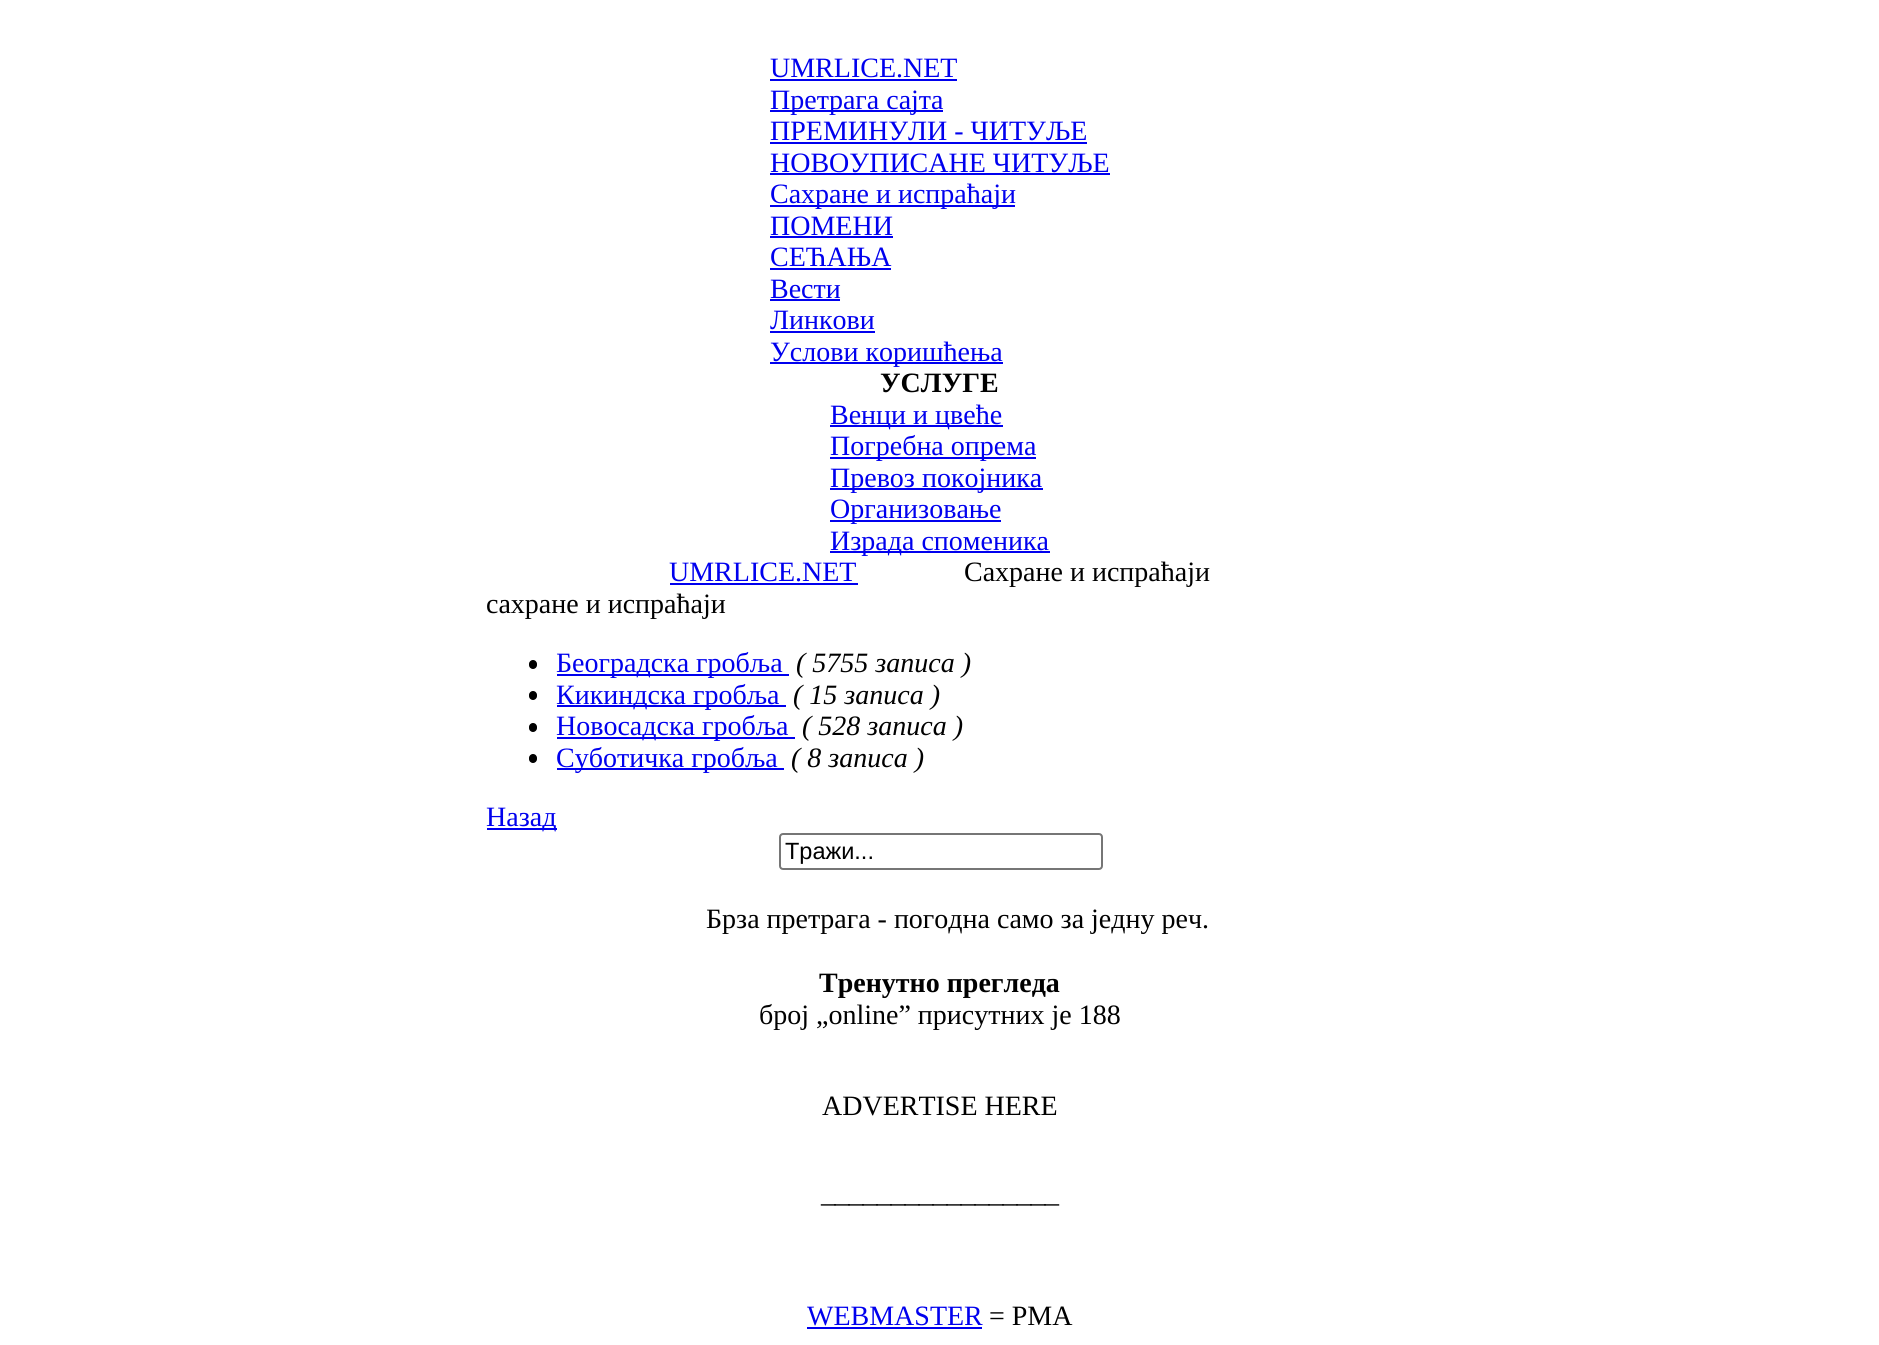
import math
import cairo



def rounded_rect(context, x, y, w, h, r):
    context.new_sub_path()
    for i, (u, v) in enumerate([(x + w - r, y + h - r), (x + r, y + h - r), (x + r, y + r), (x + w - r, y + r)]):
        context.arc(u, v, r, i * math.pi / 2, (i + 1) * math.pi / 2)
    context.close_path()


def draw(context):
    context.set_source_rgb(1, 1, 1)
    context.paint()
    context.set_source_rgb(0, 0, 238 / 255)
    context.rectangle(770, 79, 187, 2)
    context.fill()
    context.rectangle(770, 110, 173, 2)
    context.fill()
    context.rectangle(770, 142, 317, 2)
    context.fill()
    context.rectangle(770, 173, 340, 2)
    context.fill()
    context.rectangle(770, 205, 245, 2)
    context.fill()
    context.rectangle(770, 236, 123, 2)
    context.fill()
    context.rectangle(770, 268, 121, 2)
    context.fill()
    context.rectangle(770, 299, 70, 2)
    context.fill()
    context.rectangle(770, 331, 105, 2)
    context.fill()
    context.rectangle(770, 362, 233, 2)
    context.fill()
    context.rectangle(830, 425, 173, 2)
    context.fill()
    context.rectangle(830, 457, 206, 2)
    context.fill()
    context.rectangle(830, 488, 213, 2)
    context.fill()
    context.rectangle(830, 520, 171, 2)
    context.fill()
    context.rectangle(830, 551, 220, 2)
    context.fill()
    context.rectangle(670, 583, 188, 2)
    context.fill()
    context.set_source_rgb(0, 0, 0)
    rounded_rect(context, 529, 660, 8, 9, 4)
    context.fill()
    context.set_source_rgb(0, 0, 238 / 255)
    context.rectangle(557, 674, 232, 2)
    context.fill()
    context.set_source_rgb(0, 0, 0)
    rounded_rect(context, 529, 691, 8, 9, 4)
    context.fill()
    context.set_source_rgb(0, 0, 238 / 255)
    context.rectangle(557, 705, 229, 2)
    context.fill()
    context.set_source_rgb(0, 0, 0)
    rounded_rect(context, 529, 723, 8, 9, 4)
    context.fill()
    context.set_source_rgb(0, 0, 238 / 255)
    context.rectangle(557, 737, 238, 2)
    context.fill()
    context.set_source_rgb(0, 0, 0)
    rounded_rect(context, 529, 754, 8, 9, 4)
    context.fill()
    context.set_source_rgb(0, 0, 238 / 255)
    context.rectangle(557, 768, 227, 2)
    context.fill()
    context.rectangle(487, 828, 70, 2)
    context.fill()
    rounded_rect(context, 780, 834, 322, 35, 3)
    context.set_source_rgb(118 / 255, 118 / 255, 118 / 255)
    context.stroke()
    context.set_source_rgb(0, 0, 238 / 255)
    context.rectangle(807, 1327, 175, 2)
    context.fill()
    context.select_font_face("Liberation Serif")
    context.set_font_size(28)
    context.move_to(770, 77)
    context.show_text("UMRLICE.NET")
    context.move_to(770, 109)
    context.show_text("Претрага сајта")
    context.move_to(770, 140)
    context.show_text("ПРЕМИНУЛИ - ЧИТУЉЕ")
    context.move_to(770, 172)
    context.show_text("НОВОУПИСАНЕ ЧИТУЉЕ")
    context.move_to(770, 203)
    context.show_text("Сахране и испраћаји")
    context.move_to(770, 235)
    context.show_text("ПОМЕНИ")
    context.move_to(770, 266)
    context.show_text("СЕЋАЊА")
    context.move_to(770, 298)
    context.show_text("Вести")
    context.move_to(770, 329)
    context.show_text("Линкови")
    context.move_to(770, 361)
    context.show_text("Услови коришћења")
    context.select_font_face("Liberation Serif", cairo.FontSlant.NORMAL, cairo.FontWeight.BOLD)
    context.set_source_rgb(0, 0, 0)
    context.move_to(880, 392)
    context.show_text("УСЛУГЕ")
    context.select_font_face("Liberation Serif")
    context.set_source_rgb(0, 0, 238 / 255)
    context.move_to(830, 424)
    context.show_text("Венци и цвеће")
    context.move_to(830, 455)
    context.show_text("Погребна опрема")
    context.move_to(830, 487)
    context.show_text("Превоз покојника")
    context.move_to(830, 518)
    context.show_text("Организовање")
    context.move_to(830, 550)
    context.show_text("Израда споменика")
    context.move_to(669, 581)
    context.show_text("UMRLICE.NET")
    context.set_source_rgb(0, 0, 0)
    context.move_to(964, 581)
    context.show_text("Сахране и испраћаји")
    context.move_to(486, 613)
    context.show_text("сахране и испраћаји")
    context.set_source_rgb(0, 0, 238 / 255)
    context.move_to(556, 672)
    context.show_text("Београдска гробља")
    context.select_font_face("Liberation Serif", cairo.FontSlant.ITALIC)
    context.set_source_rgb(0, 0, 0)
    context.move_to(796, 672)
    context.show_text("( 5755 записа )")
    context.select_font_face("Liberation Serif")
    context.set_source_rgb(0, 0, 238 / 255)
    context.move_to(556, 704)
    context.show_text("Кикиндска гробља")
    context.select_font_face("Liberation Serif", cairo.FontSlant.ITALIC)
    context.set_source_rgb(0, 0, 0)
    context.move_to(793, 704)
    context.show_text("( 15 записа )")
    context.select_font_face("Liberation Serif")
    context.set_source_rgb(0, 0, 238 / 255)
    context.move_to(556, 735)
    context.show_text("Новосадска гробља")
    context.select_font_face("Liberation Serif", cairo.FontSlant.ITALIC)
    context.set_source_rgb(0, 0, 0)
    context.move_to(802, 735)
    context.show_text("( 528 записа )")
    context.select_font_face("Liberation Serif")
    context.set_source_rgb(0, 0, 238 / 255)
    context.move_to(556, 767)
    context.show_text("Суботичка гробља")
    context.select_font_face("Liberation Serif", cairo.FontSlant.ITALIC)
    context.set_source_rgb(0, 0, 0)
    context.move_to(791, 767)
    context.show_text("( 8 записа )")
    context.select_font_face("Liberation Serif")
    context.set_source_rgb(0, 0, 238 / 255)
    context.move_to(486, 826)
    context.show_text("Назад")
    context.select_font_face("Liberation Sans")
    context.set_font_size(23.5)
    context.set_source_rgb(0, 0, 0)
    context.move_to(785, 859)
    context.show_text("Тражи...")
    context.select_font_face("Liberation Serif")
    context.set_font_size(28)
    context.move_to(706, 928)
    context.show_text("Брза претрага - погодна само за једну реч.")
    context.select_font_face("Liberation Serif", cairo.FontSlant.NORMAL, cairo.FontWeight.BOLD)
    context.move_to(819, 992)
    context.show_text("Тренутно прегледа")
    context.select_font_face("Liberation Serif")
    context.move_to(759, 1024)
    context.show_text("број „online” присутних је 188")
    context.move_to(822, 1115)
    context.show_text("ADVERTISE HERE")
    context.move_to(821, 1202)
    context.show_text("_________________")
    context.set_source_rgb(0, 0, 238 / 255)
    context.move_to(807, 1325)
    context.show_text("WEBMASTER")
    context.set_source_rgb(0, 0, 0)
    context.move_to(989, 1325)
    context.show_text("= PMA")


surface = cairo.ImageSurface(cairo.Format.RGB24, 1879, 1345)
context = cairo.Context(surface)
options = cairo.FontOptions()
options.set_hint_metrics(cairo.HintMetrics.OFF)
options.set_hint_style(cairo.HintStyle.NONE)
context.set_font_options(options)
context.set_miter_limit(4)
draw(context)
surface.write_to_png("out.png")
